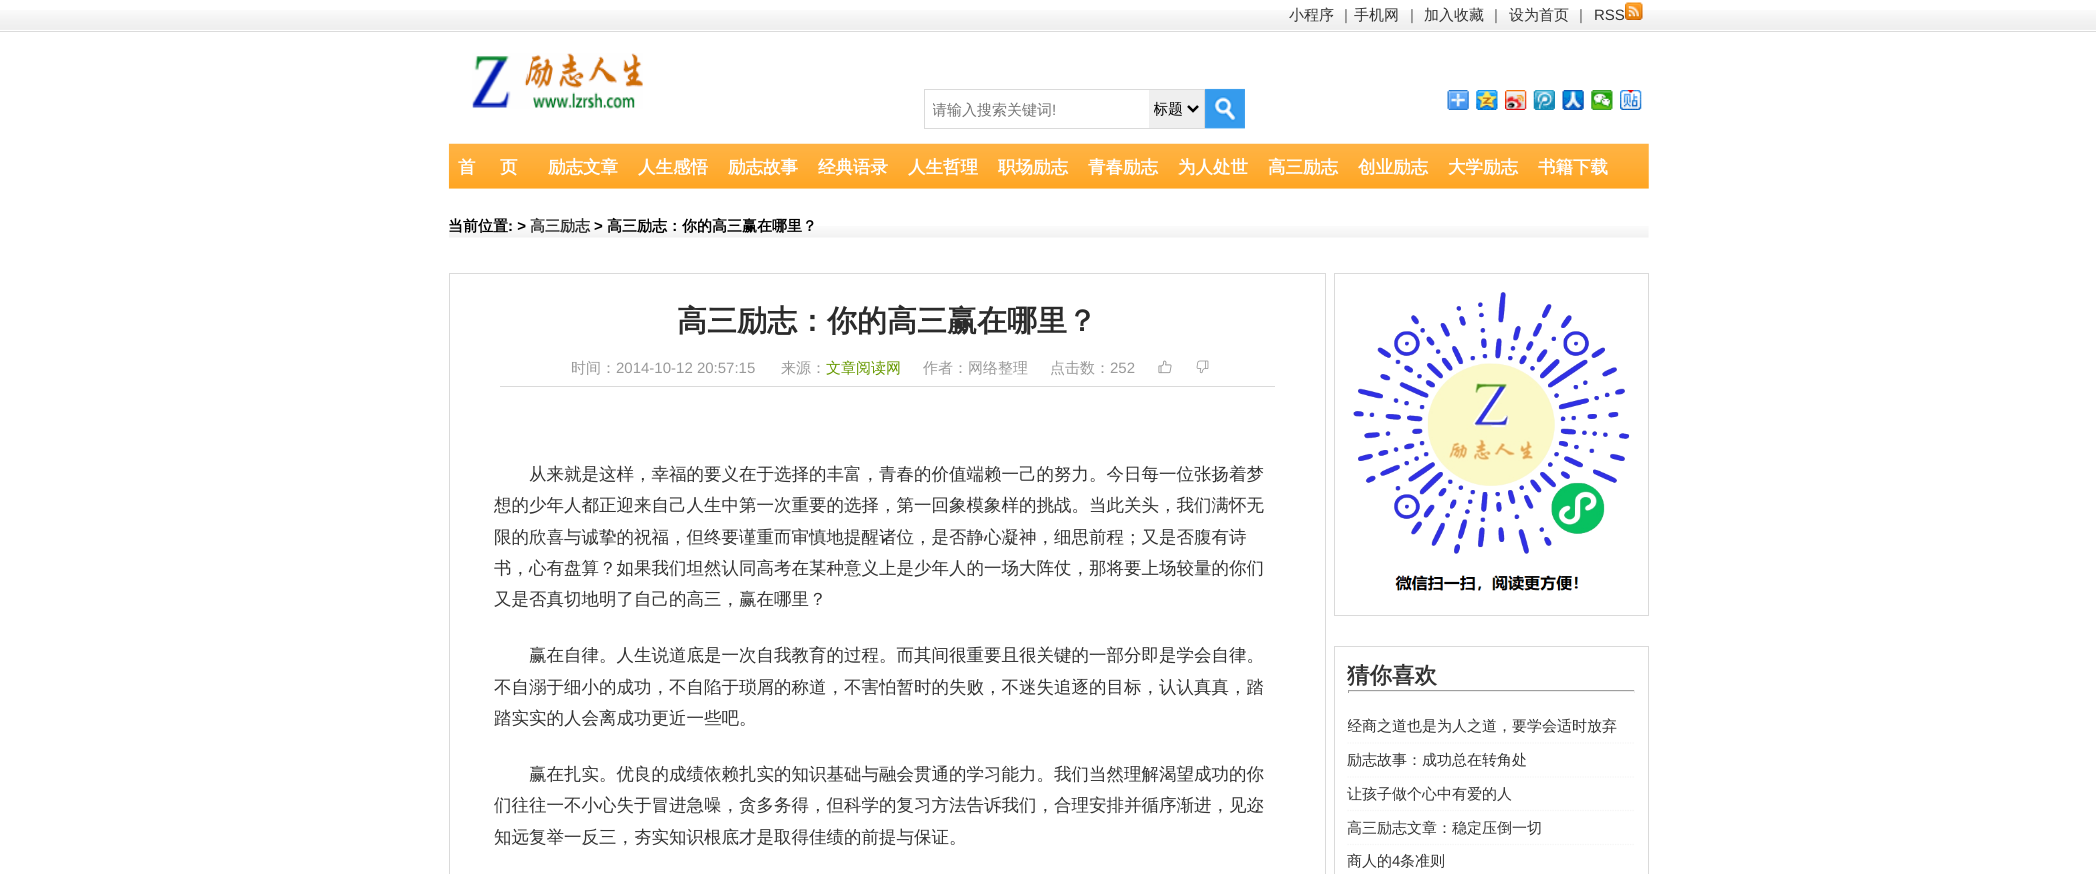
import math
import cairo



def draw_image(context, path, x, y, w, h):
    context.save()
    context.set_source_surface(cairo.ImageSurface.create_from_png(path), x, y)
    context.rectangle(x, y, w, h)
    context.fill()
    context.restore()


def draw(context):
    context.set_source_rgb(1, 1, 1)
    context.paint()
    draw_image(context, "images/1.png", 0, 10, 2096, 20)
    context.set_source_rgb(219 / 255, 219 / 255, 219 / 255)
    context.rectangle(0, 31, 2096, 1)
    context.fill()
    draw_image(context, "images/2.png", 1625, 2, 18, 18)
    draw_image(context, "images/3.png", 472, 53, 171, 56)
    context.set_source_rgb(218 / 255, 218 / 255, 218 / 255)
    context.rectangle(924, 89, 281, 1)
    context.fill()
    context.rectangle(924, 128, 225, 1)
    context.fill()
    context.rectangle(924, 89, 1, 40)
    context.fill()
    context.set_source_rgb(239 / 255, 239 / 255, 239 / 255)
    context.rectangle(1149, 90, 55, 38)
    context.fill()
    context.set_source_rgb(218 / 255, 218 / 255, 218 / 255)
    context.rectangle(1204, 89, 1, 40)
    context.fill()
    context.rectangle(1149, 128, 56, 1)
    context.fill()
    context.new_path()
    context.move_to(1188, 106)
    context.line_to(1193, 111)
    context.line_to(1198, 106)
    context.set_source_rgb(0, 0, 0)
    context.set_line_width(2.5)
    context.stroke()
    draw_image(context, "images/4.png", 1205, 88, 40, 41)
    draw_image(context, "images/5.png", 1447, 90, 22, 20)
    draw_image(context, "images/6.png", 1476, 90, 22, 20)
    draw_image(context, "images/7.png", 1505, 90, 22, 20)
    draw_image(context, "images/8.png", 1533, 90, 22, 20)
    draw_image(context, "images/9.png", 1562, 90, 22, 20)
    draw_image(context, "images/10.png", 1591, 90, 22, 20)
    draw_image(context, "images/11.png", 1620, 90, 22, 20)
    draw_image(context, "images/12.png", 448, 143, 1201, 46)
    draw_image(context, "images/13.png", 449, 226, 1200, 12)
    context.rectangle(449.5, 273.5, 876, 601)
    context.set_source_rgb(218 / 255, 218 / 255, 218 / 255)
    context.set_line_width(1)
    context.stroke()
    context.rectangle(500, 386, 775, 1)
    context.fill()
    draw_image(context, "images/14.png", 1158, 360, 14, 14)
    draw_image(context, "images/15.png", 1196, 360, 13, 14)
    context.rectangle(1334.5, 273.5, 314, 342)
    context.stroke()
    draw_image(context, "images/16.png", 1353, 292, 277, 299)
    context.rectangle(1334.5, 646.5, 314, 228)
    context.stroke()
    context.set_source_rgb(159 / 255, 159 / 255, 159 / 255)
    context.rectangle(1348, 690, 287, 1)
    context.fill()
    context.set_source_rgb(238 / 255, 238 / 255, 238 / 255)
    context.rectangle(1634, 690, 1, 3)
    context.fill()
    context.rectangle(1348, 691, 287, 1)
    context.fill()
    context.set_source_rgb(159 / 255, 159 / 255, 159 / 255)
    context.rectangle(1348, 690, 1, 3)
    context.fill()
    context.new_path()
    context.move_to(1347.5, 743)
    context.line_to(1635, 743)
    context.set_source_rgb(245 / 255, 245 / 255, 245 / 255)
    context.set_line_width(1.2)
    context.set_dash([1.25, 1.25])
    context.stroke()
    context.new_path()
    context.move_to(1347.5, 777)
    context.line_to(1635, 777)
    context.stroke()
    context.new_path()
    context.move_to(1347.5, 810.5)
    context.line_to(1635, 810.5)
    context.stroke()
    context.new_path()
    context.move_to(1347.5, 844.5)
    context.line_to(1635, 844.5)
    context.stroke()
    context.select_font_face("WenQuanYi Zen Hei Medium")
    context.set_font_size(15)
    context.set_source_rgb(51 / 255, 51 / 255, 51 / 255)
    context.move_to(1289, 20)
    context.show_text("小程序")
    context.select_font_face("Liberation Sans")
    context.set_source_rgb(103 / 255, 103 / 255, 103 / 255)
    context.move_to(1344, 20)
    context.show_text("|")
    context.select_font_face("WenQuanYi Zen Hei Medium")
    context.set_source_rgb(51 / 255, 51 / 255, 51 / 255)
    context.move_to(1354, 20)
    context.show_text("手机网")
    context.select_font_face("Liberation Sans")
    context.set_source_rgb(103 / 255, 103 / 255, 103 / 255)
    context.move_to(1410, 20)
    context.show_text("|")
    context.select_font_face("WenQuanYi Zen Hei Medium")
    context.set_source_rgb(51 / 255, 51 / 255, 51 / 255)
    context.move_to(1424, 20)
    context.show_text("加入收藏")
    context.select_font_face("Liberation Sans")
    context.set_source_rgb(103 / 255, 103 / 255, 103 / 255)
    context.move_to(1494, 20)
    context.show_text("|")
    context.select_font_face("WenQuanYi Zen Hei Medium")
    context.set_source_rgb(51 / 255, 51 / 255, 51 / 255)
    context.move_to(1509, 20)
    context.show_text("设为首页")
    context.select_font_face("Liberation Sans")
    context.set_source_rgb(103 / 255, 103 / 255, 103 / 255)
    context.move_to(1579, 20)
    context.show_text("|")
    context.set_source_rgb(51 / 255, 51 / 255, 51 / 255)
    context.move_to(1594, 20)
    context.show_text("RSS")
    context.save()
    context.rectangle(933, 100, 201, 21)
    context.clip()
    context.select_font_face("WenQuanYi Zen Hei Medium")
    context.set_source_rgb(117 / 255, 117 / 255, 117 / 255)
    context.move_to(932, 115)
    context.show_text("请输入搜索关键词")
    context.restore()
    context.set_source_rgb(117 / 255, 117 / 255, 117 / 255)
    context.move_to(1052, 115)
    context.show_text("!")
    context.save()
    context.rectangle(1154, 99, 30, 20)
    context.clip()
    context.select_font_face("WenQuanYi Zen Hei Medium")
    context.set_source_rgb(0, 0, 0)
    context.move_to(1153, 114)
    context.show_text("标题")
    context.restore()
    context.select_font_face("WenQuanYi Zen Hei", cairo.FontSlant.NORMAL, cairo.FontWeight.BOLD)
    context.set_font_size(17.5)
    context.set_source_rgb(1, 1, 1)
    context.move_to(458, 173)
    context.show_text("首")
    context.move_to(500, 173)
    context.show_text("页")
    context.move_to(548, 173)
    context.show_text("励志文章")
    context.move_to(638, 173)
    context.show_text("人生感悟")
    context.move_to(728, 173)
    context.show_text("励志故事")
    context.move_to(818, 173)
    context.show_text("经典语录")
    context.move_to(908, 173)
    context.show_text("人生哲理")
    context.move_to(998, 173)
    context.show_text("职场励志")
    context.move_to(1088, 173)
    context.show_text("青春励志")
    context.move_to(1178, 173)
    context.show_text("为人处世")
    context.move_to(1268, 173)
    context.show_text("高三励志")
    context.move_to(1358, 173)
    context.show_text("创业励志")
    context.move_to(1448, 173)
    context.show_text("大学励志")
    context.move_to(1538, 173)
    context.show_text("书籍下载")
    context.set_font_size(15)
    context.set_source_rgb(0, 0, 0)
    context.move_to(448, 231)
    context.show_text("当前位置")
    context.select_font_face("Liberation Sans", cairo.FontSlant.NORMAL, cairo.FontWeight.BOLD)
    context.move_to(508, 231)
    context.show_text(": >")
    context.select_font_face("WenQuanYi Zen Hei", cairo.FontSlant.NORMAL, cairo.FontWeight.BOLD)
    context.set_source_rgb(51 / 255, 51 / 255, 51 / 255)
    context.move_to(530, 231)
    context.show_text("高三励志")
    context.select_font_face("Liberation Sans", cairo.FontSlant.NORMAL, cairo.FontWeight.BOLD)
    context.set_source_rgb(0, 0, 0)
    context.move_to(594, 231)
    context.show_text(">")
    context.select_font_face("WenQuanYi Zen Hei", cairo.FontSlant.NORMAL, cairo.FontWeight.BOLD)
    context.move_to(607, 231)
    context.show_text("高三励志：你的高三赢在哪里？")
    context.set_font_size(30)
    context.set_source_rgb(43 / 255, 43 / 255, 43 / 255)
    context.move_to(677, 331)
    context.show_text("高三励志：你的高三赢在哪里？")
    context.select_font_face("WenQuanYi Zen Hei Medium")
    context.set_font_size(15)
    context.set_source_rgb(153 / 255, 153 / 255, 153 / 255)
    context.move_to(571, 373)
    context.show_text("时间：")
    context.select_font_face("Liberation Sans")
    context.move_to(616, 373)
    context.show_text("2014-10-12 20:57:15")
    context.select_font_face("WenQuanYi Zen Hei Medium")
    context.move_to(781, 373)
    context.show_text("来源：")
    context.set_source_rgb(102 / 255, 153 / 255, 0)
    context.move_to(826, 373)
    context.show_text("文章阅读网")
    context.set_source_rgb(153 / 255, 153 / 255, 153 / 255)
    context.move_to(923, 373)
    context.show_text("作者：网络整理")
    context.move_to(1050, 373)
    context.show_text("点击数：")
    context.select_font_face("Liberation Sans")
    context.move_to(1110, 373)
    context.show_text("252")
    context.select_font_face("WenQuanYi Zen Hei Medium")
    context.set_font_size(17.5)
    context.set_source_rgb(51 / 255, 51 / 255, 51 / 255)
    context.move_to(529, 480)
    context.show_text("从来就是这样，幸福的要义在于选择的丰富，青春的价值端赖一己的努力。今日每一位张扬着梦")
    context.move_to(494, 511)
    context.show_text("想的少年人都正迎来自己人生中第一次重要的选择，第一回象模象样的挑战。当此关头，我们满怀无")
    context.move_to(494, 543)
    context.show_text("限的欣喜与诚挚的祝福，但终要谨重而审慎地提醒诸位，是否静心凝神，细思前程；又是否腹有诗")
    context.move_to(494, 574)
    context.show_text("书，心有盘算？如果我们坦然认同高考在某种意义上是少年人的一场大阵仗，那将要上场较量的你们")
    context.move_to(494, 605)
    context.show_text("又是否真切地明了自己的高三，赢在哪里？")
    context.move_to(529, 661)
    context.show_text("赢在自律。人生说道底是一次自我教育的过程。而其间很重要且很关键的一部分即是学会自律。")
    context.move_to(494, 693)
    context.show_text("不自溺于细小的成功，不自陷于琐屑的称道，不害怕暂时的失败，不迷失追逐的目标，认认真真，踏")
    context.move_to(494, 724)
    context.show_text("踏实实的人会离成功更近一些吧。")
    context.move_to(529, 780)
    context.show_text("赢在扎实。优良的成绩依赖扎实的知识基础与融会贯通的学习能力。我们当然理解渴望成功的你")
    context.move_to(494, 811)
    context.show_text("们往往一不小心失于冒进急噪，贪多务得，但科学的复习方法告诉我们，合理安排并循序渐进，见迩")
    context.move_to(494, 843)
    context.show_text("知远复举一反三，夯实知识根底才是取得佳绩的前提与保证。")
    context.select_font_face("WenQuanYi Zen Hei", cairo.FontSlant.NORMAL, cairo.FontWeight.BOLD)
    context.set_font_size(22.5)
    context.move_to(1347, 683)
    context.show_text("猜你喜欢")
    context.save()
    context.rectangle(1348, 710, 287, 33)
    context.clip()
    context.select_font_face("WenQuanYi Zen Hei Medium")
    context.set_font_size(15)
    context.move_to(1347, 731)
    context.show_text("经商之道也是为人之道，要学会适时放弃")
    context.restore()
    context.select_font_face("WenQuanYi Zen Hei Medium")
    context.set_font_size(15)
    context.move_to(1347, 765)
    context.show_text("励志故事：成功总在转角处")
    context.move_to(1347, 799)
    context.show_text("让孩子做个心中有爱的人")
    context.move_to(1347, 833)
    context.show_text("高三励志文章：稳定压倒一切")
    context.move_to(1347, 866)
    context.show_text("商人的")
    context.select_font_face("Liberation Sans")
    context.move_to(1392, 866)
    context.show_text("4")
    context.select_font_face("WenQuanYi Zen Hei Medium")
    context.move_to(1400, 866)
    context.show_text("条准则")


surface = cairo.ImageSurface(cairo.Format.RGB24, 2096, 874)
context = cairo.Context(surface)
options = cairo.FontOptions()
options.set_hint_metrics(cairo.HintMetrics.OFF)
options.set_hint_style(cairo.HintStyle.NONE)
context.set_font_options(options)
context.set_miter_limit(4)
draw(context)
surface.write_to_png("out.png")
